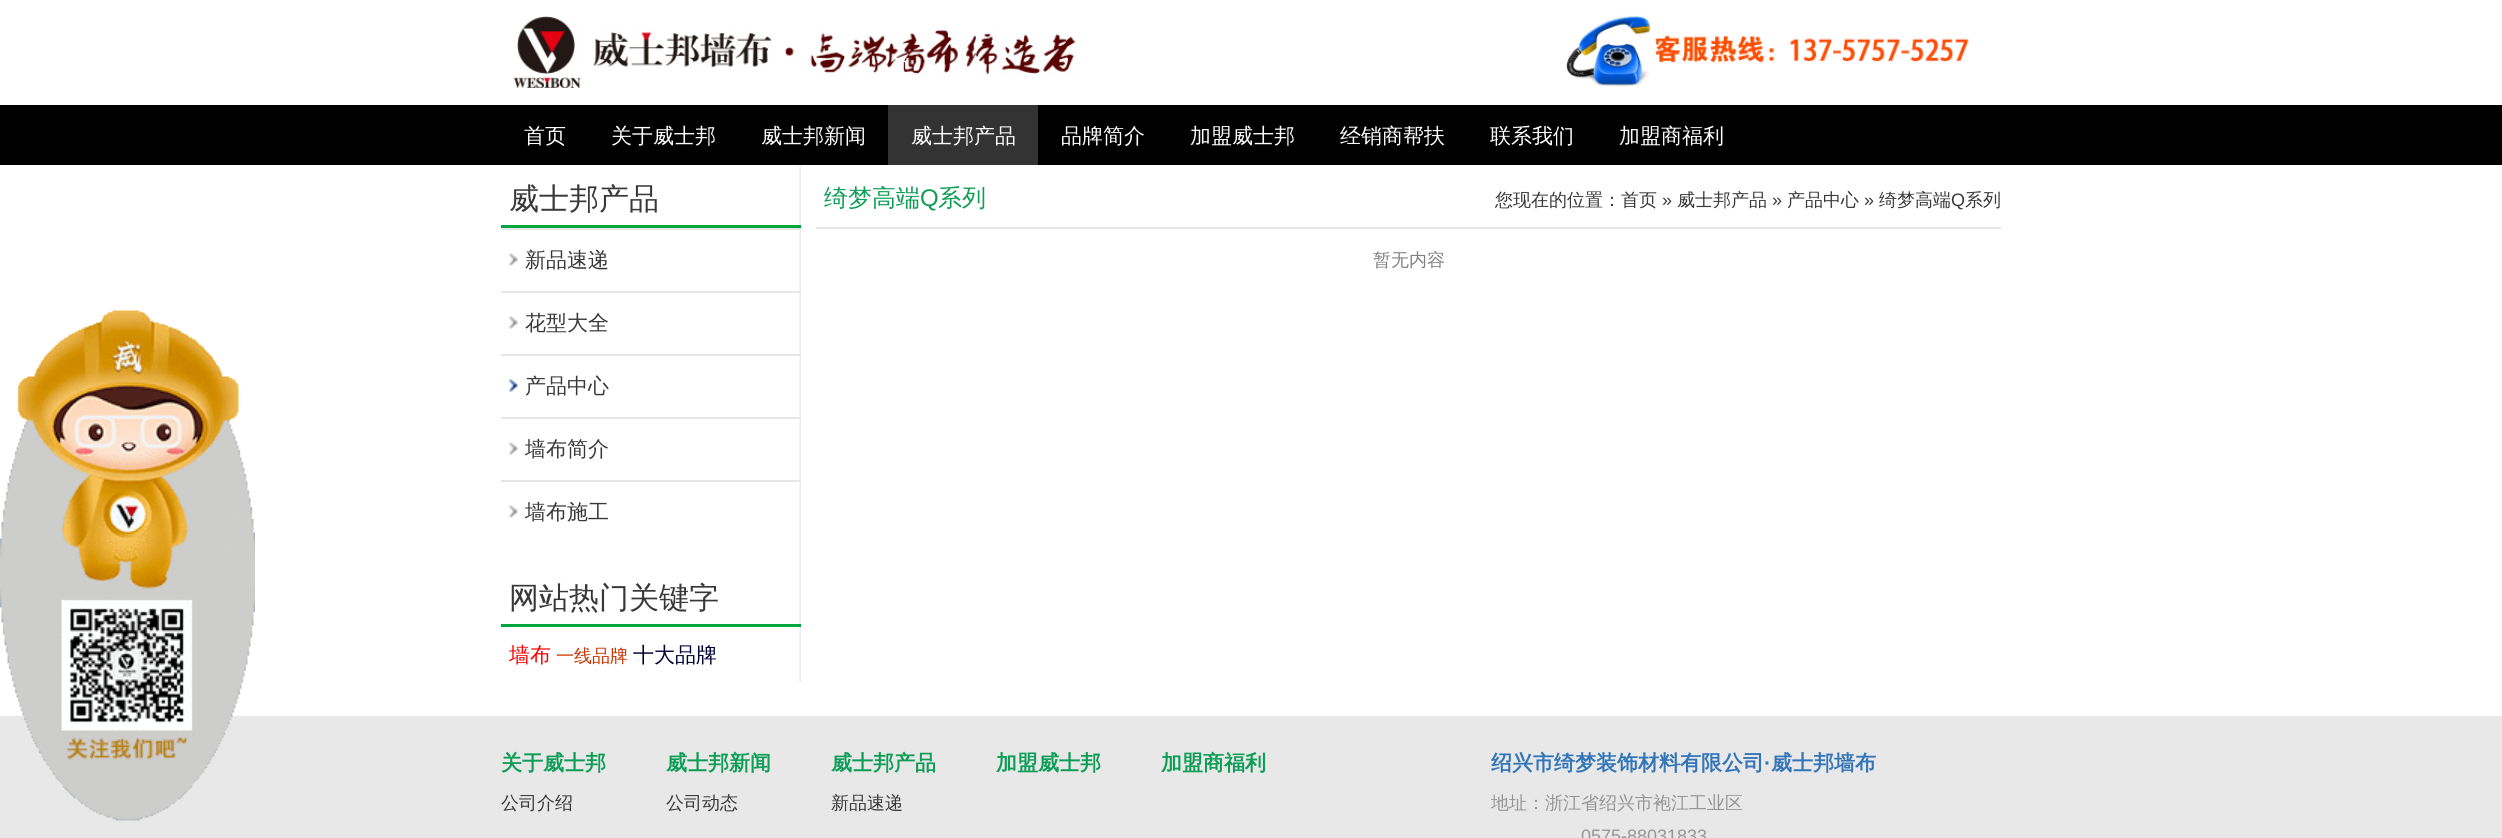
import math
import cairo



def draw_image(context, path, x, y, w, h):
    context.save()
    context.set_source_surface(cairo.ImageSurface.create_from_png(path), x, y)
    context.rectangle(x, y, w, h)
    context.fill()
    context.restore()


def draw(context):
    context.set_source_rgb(1, 1, 1)
    context.paint()
    draw_image(context, "images/1.png", 513, 16, 563, 72)
    draw_image(context, "images/2.png", 1566, 14, 403, 73)
    context.set_source_rgb(0, 0, 0)
    context.rectangle(0, 105, 2502, 60)
    context.fill()
    context.set_source_rgb(51 / 255, 51 / 255, 51 / 255)
    context.rectangle(888, 105, 150, 60)
    context.fill()
    context.set_source_rgb(232 / 255, 232 / 255, 232 / 255)
    context.rectangle(0, 716, 2502, 122)
    context.fill()
    draw_image(context, "images/3.png", 0, 310, 255, 511)
    draw_image(context, "images/4.png", 799, 166, 2, 517)
    context.set_source_rgb(0, 167 / 255, 63 / 255)
    context.rectangle(501, 225, 300, 3)
    context.fill()
    draw_image(context, "images/5.png", 508, 253, 10, 13)
    context.set_source_rgb(230 / 255, 230 / 255, 230 / 255)
    context.rectangle(501, 228, 300, 2)
    context.fill()
    draw_image(context, "images/5.png", 508, 316, 10, 13)
    context.rectangle(501, 291, 300, 2)
    context.fill()
    context.rectangle(501, 354, 300, 2)
    context.fill()
    draw_image(context, "images/6.png", 508, 379, 10, 13)
    draw_image(context, "images/5.png", 508, 442, 10, 13)
    context.rectangle(501, 417, 300, 2)
    context.fill()
    draw_image(context, "images/5.png", 508, 505, 10, 13)
    context.rectangle(501, 480, 300, 2)
    context.fill()
    context.set_source_rgb(0, 167 / 255, 63 / 255)
    context.rectangle(501, 624, 300, 3)
    context.fill()
    context.set_source_rgb(230 / 255, 230 / 255, 230 / 255)
    context.rectangle(816, 227, 1185, 2)
    context.fill()
    context.select_font_face("WenQuanYi Zen Hei Medium")
    context.set_font_size(21)
    context.set_source_rgb(1, 1, 1)
    context.move_to(524, 143)
    context.show_text("首页")
    context.move_to(611, 143)
    context.show_text("关于威士邦")
    context.move_to(761, 143)
    context.show_text("威士邦新闻")
    context.move_to(911, 143)
    context.show_text("威士邦产品")
    context.move_to(1061, 143)
    context.show_text("品牌简介")
    context.move_to(1190, 143)
    context.show_text("加盟威士邦")
    context.move_to(1340, 143)
    context.show_text("经销商帮扶")
    context.move_to(1490, 143)
    context.show_text("联系我们")
    context.move_to(1619, 143)
    context.show_text("加盟商福利")
    context.set_font_size(30)
    context.set_source_rgb(56 / 255, 56 / 255, 56 / 255)
    context.move_to(509, 209)
    context.show_text("威士邦产品")
    context.set_font_size(21)
    context.move_to(525, 267)
    context.show_text("新品速递")
    context.move_to(525, 330)
    context.show_text("花型大全")
    context.move_to(525, 393)
    context.show_text("产品中心")
    context.move_to(525, 456)
    context.show_text("墙布简介")
    context.move_to(525, 519)
    context.show_text("墙布施工")
    context.set_font_size(30)
    context.move_to(509, 608)
    context.show_text("网站热门关键字")
    context.set_font_size(21)
    context.set_source_rgb(1, 0, 0)
    context.move_to(509, 662)
    context.show_text("墙布")
    context.set_font_size(18)
    context.set_source_rgb(204 / 255, 51 / 255, 0)
    context.move_to(556, 662)
    context.show_text("一线品牌")
    context.set_font_size(21)
    context.set_source_rgb(0, 0, 51 / 255)
    context.move_to(633, 662)
    context.show_text("十大品牌")
    context.set_font_size(24)
    context.set_source_rgb(14 / 255, 157 / 255, 86 / 255)
    context.move_to(824, 206)
    context.show_text("绮梦高端")
    context.select_font_face("Liberation Sans")
    context.move_to(920, 206)
    context.show_text("Q")
    context.select_font_face("WenQuanYi Zen Hei Medium")
    context.move_to(938, 206)
    context.show_text("系列")
    context.set_font_size(18)
    context.set_source_rgb(56 / 255, 56 / 255, 56 / 255)
    context.move_to(1495, 206)
    context.show_text("您现在的位置：首页")
    context.select_font_face("Liberation Sans")
    context.move_to(1662, 206)
    context.show_text("»")
    context.select_font_face("WenQuanYi Zen Hei Medium")
    context.move_to(1677, 206)
    context.show_text("威士邦产品")
    context.select_font_face("Liberation Sans")
    context.move_to(1772, 206)
    context.show_text("»")
    context.select_font_face("WenQuanYi Zen Hei Medium")
    context.move_to(1787, 206)
    context.show_text("产品中心")
    context.select_font_face("Liberation Sans")
    context.move_to(1864, 206)
    context.show_text("»")
    context.select_font_face("WenQuanYi Zen Hei Medium")
    context.move_to(1879, 206)
    context.show_text("绮梦高端")
    context.select_font_face("Liberation Sans")
    context.move_to(1951, 206)
    context.show_text("Q")
    context.select_font_face("WenQuanYi Zen Hei Medium")
    context.move_to(1965, 206)
    context.show_text("系列")
    context.set_source_rgb(129 / 255, 129 / 255, 129 / 255)
    context.move_to(1373, 266)
    context.show_text("暂无内容")
    context.select_font_face("WenQuanYi Zen Hei", cairo.FontSlant.NORMAL, cairo.FontWeight.BOLD)
    context.set_font_size(21)
    context.set_source_rgb(14 / 255, 157 / 255, 86 / 255)
    context.move_to(501, 770)
    context.show_text("关于威士邦")
    context.select_font_face("WenQuanYi Zen Hei Medium")
    context.set_font_size(18)
    context.set_source_rgb(56 / 255, 56 / 255, 56 / 255)
    context.move_to(501, 809)
    context.show_text("公司介绍")
    context.select_font_face("WenQuanYi Zen Hei", cairo.FontSlant.NORMAL, cairo.FontWeight.BOLD)
    context.set_font_size(21)
    context.set_source_rgb(14 / 255, 157 / 255, 86 / 255)
    context.move_to(666, 770)
    context.show_text("威士邦新闻")
    context.select_font_face("WenQuanYi Zen Hei Medium")
    context.set_font_size(18)
    context.set_source_rgb(56 / 255, 56 / 255, 56 / 255)
    context.move_to(666, 809)
    context.show_text("公司动态")
    context.select_font_face("WenQuanYi Zen Hei", cairo.FontSlant.NORMAL, cairo.FontWeight.BOLD)
    context.set_font_size(21)
    context.set_source_rgb(14 / 255, 157 / 255, 86 / 255)
    context.move_to(831, 770)
    context.show_text("威士邦产品")
    context.select_font_face("WenQuanYi Zen Hei Medium")
    context.set_font_size(18)
    context.set_source_rgb(56 / 255, 56 / 255, 56 / 255)
    context.move_to(831, 809)
    context.show_text("新品速递")
    context.select_font_face("WenQuanYi Zen Hei", cairo.FontSlant.NORMAL, cairo.FontWeight.BOLD)
    context.set_font_size(21)
    context.set_source_rgb(14 / 255, 157 / 255, 86 / 255)
    context.move_to(996, 770)
    context.show_text("加盟威士邦")
    context.move_to(1161, 770)
    context.show_text("加盟商福利")
    context.set_source_rgb(51 / 255, 117 / 255, 185 / 255)
    context.move_to(1491, 770)
    context.show_text("绍兴市绮梦装饰材料有限公司")
    context.select_font_face("Liberation Sans", cairo.FontSlant.NORMAL, cairo.FontWeight.BOLD)
    context.move_to(1764, 770)
    context.show_text("·")
    context.select_font_face("WenQuanYi Zen Hei", cairo.FontSlant.NORMAL, cairo.FontWeight.BOLD)
    context.move_to(1771, 770)
    context.show_text("威士邦墙布")
    context.select_font_face("WenQuanYi Zen Hei Medium")
    context.set_font_size(18)
    context.set_source_rgb(149 / 255, 149 / 255, 149 / 255)
    context.move_to(1491, 809)
    context.show_text("地址：浙江省绍兴市袍江工业区")
    context.select_font_face("Liberation Sans")
    context.move_to(1581, 842)
    context.show_text("0575-88031833")


surface = cairo.ImageSurface(cairo.Format.RGB24, 2502, 838)
context = cairo.Context(surface)
options = cairo.FontOptions()
options.set_hint_metrics(cairo.HintMetrics.OFF)
options.set_hint_style(cairo.HintStyle.NONE)
context.set_font_options(options)
context.set_miter_limit(4)
draw(context)
surface.write_to_png("out.png")
